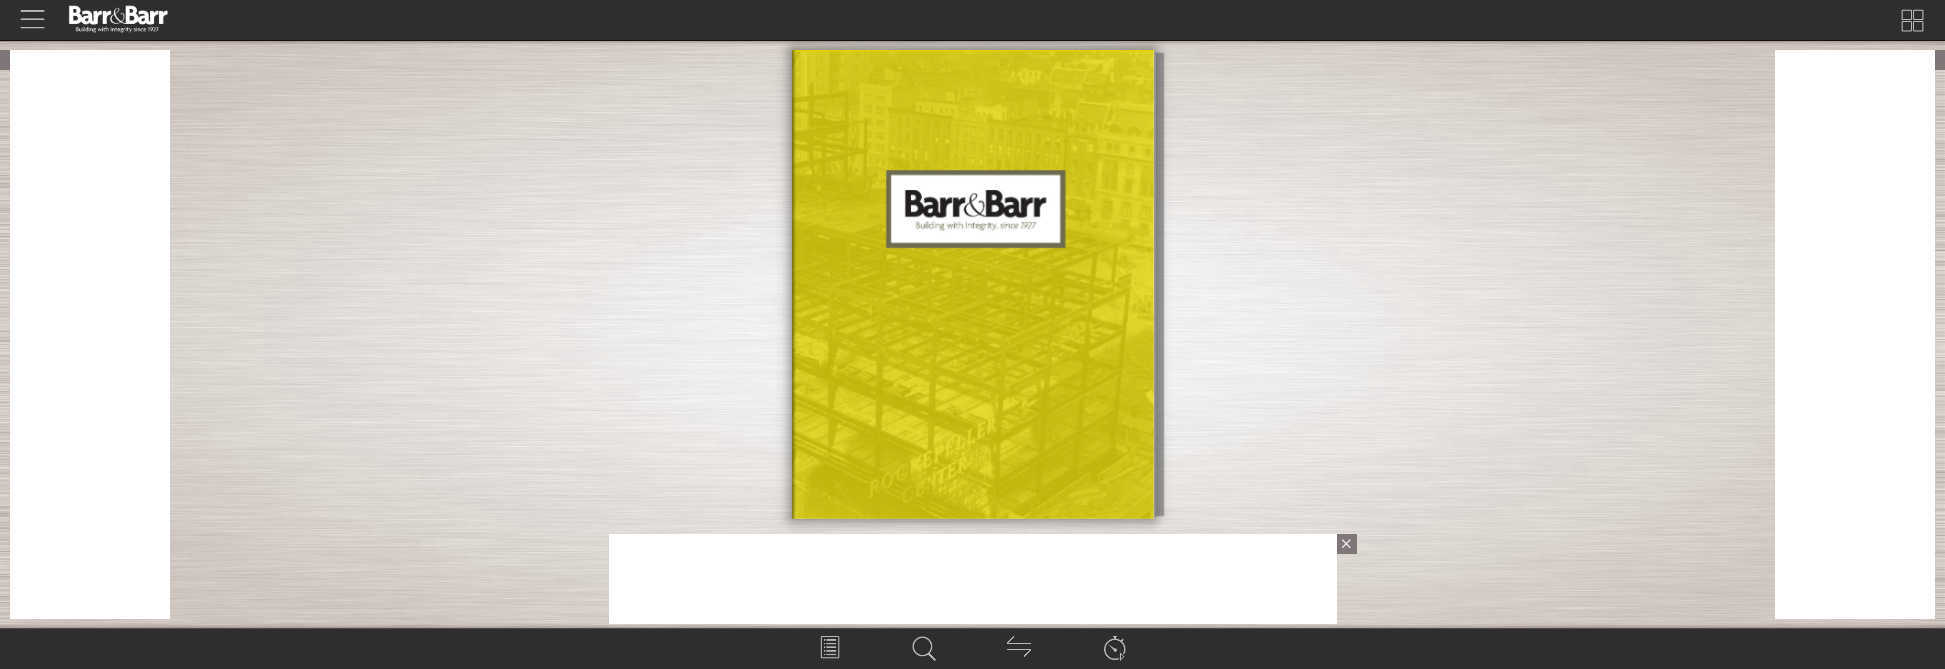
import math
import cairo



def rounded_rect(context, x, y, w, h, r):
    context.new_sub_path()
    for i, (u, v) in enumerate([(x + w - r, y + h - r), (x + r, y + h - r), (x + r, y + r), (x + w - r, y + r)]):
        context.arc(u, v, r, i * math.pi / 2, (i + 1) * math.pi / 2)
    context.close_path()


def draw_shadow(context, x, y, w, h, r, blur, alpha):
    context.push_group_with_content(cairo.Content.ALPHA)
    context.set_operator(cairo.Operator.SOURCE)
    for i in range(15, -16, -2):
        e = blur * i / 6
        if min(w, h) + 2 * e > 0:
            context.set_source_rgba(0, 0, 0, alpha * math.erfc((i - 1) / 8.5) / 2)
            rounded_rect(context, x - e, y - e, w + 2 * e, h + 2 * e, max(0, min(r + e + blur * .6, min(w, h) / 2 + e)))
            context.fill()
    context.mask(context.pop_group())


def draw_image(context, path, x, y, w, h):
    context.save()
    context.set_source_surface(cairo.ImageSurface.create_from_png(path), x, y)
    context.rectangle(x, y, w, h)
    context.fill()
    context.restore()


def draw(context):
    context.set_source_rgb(1, 1, 1)
    context.paint()
    draw_image(context, "images/8.png", 0, 41, 1945, 587)
    context.set_source_rgb(40 / 255, 0, 0)
    draw_shadow(context, 0, 0, 1945, 41, 0, 2.5, 0.5)
    context.set_source_rgb(125 / 255, 125 / 255, 125 / 255)
    draw_shadow(context, 1151, 53, 13, 463, 0, 0.5, 0.7)
    draw_image(context, "images/5.png", 1154, 51, 2, 49)
    draw_image(context, "images/6.png", 1154, 100, 2, 369)
    draw_image(context, "images/7.png", 1154, 469, 2, 49)
    context.set_source_rgb(40 / 255, 40 / 255, 40 / 255)
    draw_shadow(context, 792, 50, 362, 469, 0, 7.5, 0.7)
    context.set_source_rgb(46 / 255, 46 / 255, 46 / 255)
    context.rectangle(0, 0, 1945, 40)
    context.fill()
    context.set_source_rgb(16 / 255, 16 / 255, 16 / 255)
    context.rectangle(0, 40, 1945, 1)
    context.fill()
    draw_image(context, "images/1.png", 20, 10, 25, 19)
    draw_image(context, "images/2.png", 68, 5, 100, 28)
    draw_image(context, "images/3.png", 1901, 9, 23, 23)
    context.set_source_rgb(232 / 255, 232 / 255, 232 / 255)
    context.rectangle(792, 50, 362, 469)
    context.fill()
    draw_image(context, "images/4.png", 792, 50, 362, 469)
    gradient = cairo.LinearGradient(792, 285, 796, 285)
    gradient.add_color_stop_rgba(0, 20 / 255, 20 / 255, 20 / 255, 0.5)
    gradient.add_color_stop_rgba(1, 20 / 255, 20 / 255, 20 / 255, 0)
    context.set_source(gradient)
    context.rectangle(792, 50, 4, 469)
    context.fill()
    context.set_source_rgb(40 / 255, 0, 0)
    draw_shadow(context, 0, 628, 1945, 41, 0, 2.5, 0.5)
    context.set_source_rgb(46 / 255, 46 / 255, 46 / 255)
    context.rectangle(0, 629, 1945, 40)
    context.fill()
    context.set_source_rgb(76 / 255, 76 / 255, 76 / 255)
    context.rectangle(0, 628, 1945, 1)
    context.fill()
    draw_image(context, "images/9.png", 820, 636, 20, 23)
    draw_image(context, "images/10.png", 912, 636, 24, 25)
    draw_image(context, "images/11.png", 1007, 636, 24, 21)
    draw_image(context, "images/12.png", 1104, 636, 22, 25)
    context.set_source_rgb(1, 1, 1)
    context.rectangle(10, 50, 160, 569)
    context.fill()
    context.set_source_rgb(127 / 255, 119 / 255, 119 / 255)
    context.rectangle(0, 50, 10, 20)
    context.fill()
    context.set_source_rgb(1, 1, 1)
    context.rectangle(609, 534, 728, 90)
    context.fill()
    context.set_source_rgb(127 / 255, 119 / 255, 119 / 255)
    context.rectangle(1337, 534, 20, 20)
    context.fill()
    context.set_source_rgb(1, 1, 1)
    context.rectangle(1775, 50, 160, 569)
    context.fill()
    context.set_source_rgb(127 / 255, 119 / 255, 119 / 255)
    context.rectangle(1935, 50, 10, 20)
    context.fill()
    context.select_font_face("Liberation Serif")
    context.set_font_size(22)
    context.set_source_rgb(1, 1, 1)
    context.move_to(1340, 551)
    context.show_text("×")


surface = cairo.ImageSurface(cairo.Format.RGB24, 1945, 669)
context = cairo.Context(surface)
options = cairo.FontOptions()
options.set_hint_metrics(cairo.HintMetrics.OFF)
options.set_hint_style(cairo.HintStyle.NONE)
context.set_font_options(options)
context.set_miter_limit(4)
draw(context)
surface.write_to_png("out.png")
